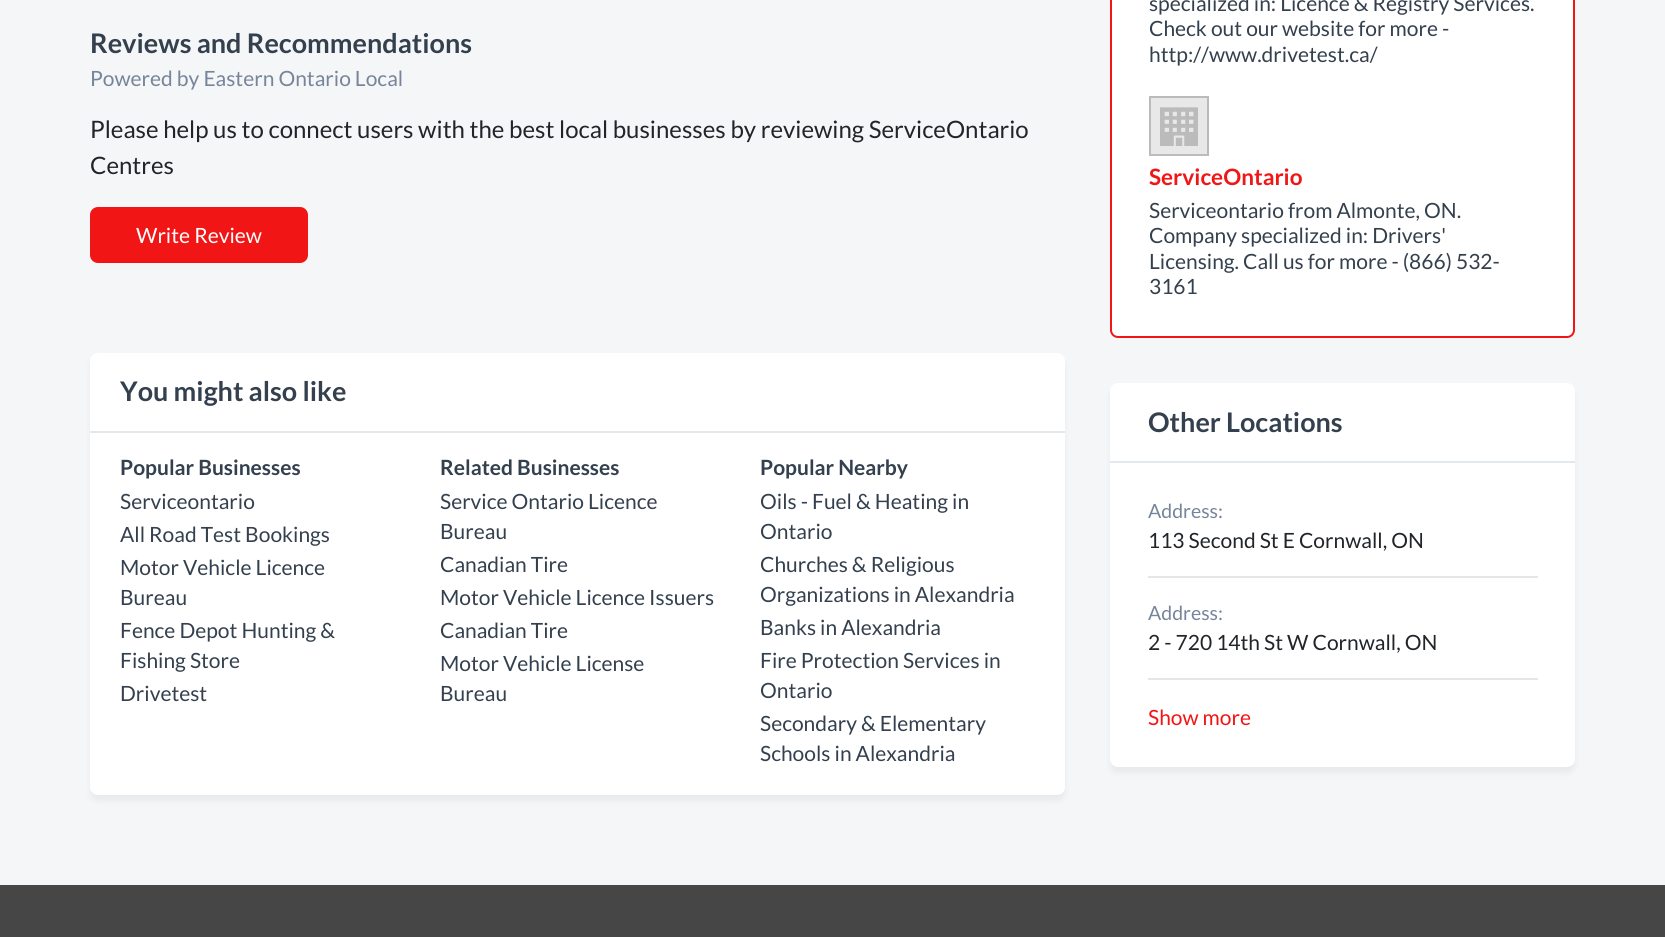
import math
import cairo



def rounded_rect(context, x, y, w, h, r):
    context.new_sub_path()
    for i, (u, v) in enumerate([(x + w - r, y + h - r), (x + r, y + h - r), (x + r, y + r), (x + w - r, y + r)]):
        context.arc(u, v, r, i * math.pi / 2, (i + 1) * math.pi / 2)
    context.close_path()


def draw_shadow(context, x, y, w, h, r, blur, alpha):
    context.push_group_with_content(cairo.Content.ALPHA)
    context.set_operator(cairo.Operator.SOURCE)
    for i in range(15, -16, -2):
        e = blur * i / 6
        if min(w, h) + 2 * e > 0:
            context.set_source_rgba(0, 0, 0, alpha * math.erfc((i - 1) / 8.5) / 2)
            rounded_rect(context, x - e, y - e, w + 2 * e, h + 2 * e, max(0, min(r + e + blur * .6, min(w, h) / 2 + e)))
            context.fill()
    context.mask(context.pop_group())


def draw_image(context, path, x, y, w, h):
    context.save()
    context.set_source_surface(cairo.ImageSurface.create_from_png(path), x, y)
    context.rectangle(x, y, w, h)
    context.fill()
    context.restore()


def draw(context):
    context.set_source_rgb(245 / 255, 246 / 255, 248 / 255)
    context.paint()
    context.set_source_rgb(242 / 255, 21 / 255, 21 / 255)
    rounded_rect(context, 90, 207, 218, 56, 8)
    context.fill()
    context.set_source_rgb(0, 0, 0)
    draw_shadow(context, 90, 359, 975, 442, 8, 3, 0.05)
    context.set_source_rgb(1, 1, 1)
    rounded_rect(context, 90, 353, 975, 442, 8)
    context.fill()
    context.set_source_rgb(226 / 255, 232 / 255, 237 / 255)
    context.rectangle(90, 431, 975, 2)
    context.fill()
    context.set_source_rgb(1, 1, 1)
    rounded_rect(context, 1111, -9, 463, 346, 7)
    context.fill_preserve()
    context.set_source_rgb(242 / 255, 21 / 255, 21 / 255)
    context.stroke()
    draw_image(context, "images/1.png", 1149, 96, 60, 60)
    context.set_source_rgb(0, 0, 0)
    draw_shadow(context, 1110, 389, 465, 384, 8, 3, 0.05)
    context.set_source_rgb(1, 1, 1)
    rounded_rect(context, 1110, 383, 465, 384, 8)
    context.fill()
    context.set_source_rgb(226 / 255, 232 / 255, 237 / 255)
    context.rectangle(1110, 461, 465, 2)
    context.fill()
    context.set_source_rgb(230 / 255, 230 / 255, 230 / 255)
    context.rectangle(1148, 576, 390, 2)
    context.fill()
    context.rectangle(1148, 678, 390, 2)
    context.fill()
    context.set_source_rgb(70 / 255, 70 / 255, 70 / 255)
    context.rectangle(0, 885, 1665, 52)
    context.fill()
    context.select_font_face("Lato", cairo.FontSlant.NORMAL, cairo.FontWeight.BOLD)
    context.set_font_size(27)
    context.set_source_rgb(52 / 255, 64 / 255, 78 / 255)
    context.move_to(90, 53)
    context.show_text("Reviews and Recommendations")
    context.select_font_face("Lato")
    context.set_font_size(21)
    context.set_source_rgb(119 / 255, 133 / 255, 154 / 255)
    context.move_to(90, 86)
    context.show_text("Powered by Eastern Ontario Local")
    context.set_font_size(24)
    context.set_source_rgb(33 / 255, 37 / 255, 41 / 255)
    context.move_to(90, 138)
    context.show_text("Please help us to connect users with the best local businesses by reviewing ServiceOntario")
    context.move_to(90, 174)
    context.show_text("Centres")
    context.set_font_size(21)
    context.set_source_rgb(1, 1, 1)
    context.move_to(136, 243)
    context.show_text("Write Review")
    context.select_font_face("Lato", cairo.FontSlant.NORMAL, cairo.FontWeight.BOLD)
    context.set_font_size(27)
    context.set_source_rgb(52 / 255, 64 / 255, 78 / 255)
    context.move_to(120, 401)
    context.show_text("You might also like")
    context.set_font_size(21)
    context.move_to(120, 475)
    context.show_text("Popular Businesses")
    context.select_font_face("Lato")
    context.move_to(120, 509)
    context.show_text("Serviceontario")
    context.move_to(120, 542)
    context.show_text("All Road Test Bookings")
    context.move_to(120, 575)
    context.show_text("Motor Vehicle Licence")
    context.move_to(120, 605)
    context.show_text("Bureau")
    context.move_to(120, 638)
    context.show_text("Fence Depot Hunting &")
    context.move_to(120, 668)
    context.show_text("Fishing Store")
    context.move_to(120, 701)
    context.show_text("Drivetest")
    context.select_font_face("Lato", cairo.FontSlant.NORMAL, cairo.FontWeight.BOLD)
    context.move_to(440, 475)
    context.show_text("Related Businesses")
    context.select_font_face("Lato")
    context.move_to(440, 509)
    context.show_text("Service Ontario Licence")
    context.move_to(440, 539)
    context.show_text("Bureau")
    context.move_to(440, 572)
    context.show_text("Canadian Tire")
    context.move_to(440, 605)
    context.show_text("Motor Vehicle Licence Issuers")
    context.move_to(440, 638)
    context.show_text("Canadian Tire")
    context.move_to(440, 671)
    context.show_text("Motor Vehicle License")
    context.move_to(440, 701)
    context.show_text("Bureau")
    context.select_font_face("Lato", cairo.FontSlant.NORMAL, cairo.FontWeight.BOLD)
    context.move_to(760, 475)
    context.show_text("Popular Nearby")
    context.select_font_face("Lato")
    context.move_to(760, 509)
    context.show_text("Oils - Fuel & Heating in")
    context.move_to(760, 539)
    context.show_text("Ontario")
    context.move_to(760, 572)
    context.show_text("Churches & Religious")
    context.move_to(760, 602)
    context.show_text("Organizations in Alexandria")
    context.move_to(760, 635)
    context.show_text("Banks in Alexandria")
    context.move_to(760, 668)
    context.show_text("Fire Protection Services in")
    context.move_to(760, 698)
    context.show_text("Ontario")
    context.move_to(760, 731)
    context.show_text("Secondary & Elementary")
    context.move_to(760, 761)
    context.show_text("Schools in Alexandria")
    context.move_to(1149, 11)
    context.show_text("specialized in: Licence & Registry Services.")
    context.move_to(1149, 36)
    context.show_text("Check out our website for more -")
    context.move_to(1149, 62)
    context.show_text("http://www.drivetest.ca/")
    context.select_font_face("Lato", cairo.FontSlant.NORMAL, cairo.FontWeight.BOLD)
    context.set_font_size(22.5)
    context.set_source_rgb(242 / 255, 21 / 255, 21 / 255)
    context.move_to(1149, 185)
    context.show_text("ServiceOntario")
    context.select_font_face("Lato")
    context.set_font_size(21)
    context.set_source_rgb(52 / 255, 64 / 255, 78 / 255)
    context.move_to(1149, 218)
    context.show_text("Serviceontario from Almonte, ON.")
    context.move_to(1149, 243)
    context.show_text("Company specialized in: Drivers'")
    context.move_to(1149, 269)
    context.show_text("Licensing. Call us for more - (866) 532-")
    context.move_to(1149, 294)
    context.show_text("3161")
    context.select_font_face("Lato", cairo.FontSlant.NORMAL, cairo.FontWeight.BOLD)
    context.set_font_size(27)
    context.move_to(1148, 432)
    context.show_text("Other Locations")
    context.select_font_face("Lato")
    context.set_font_size(19.5)
    context.set_source_rgb(119 / 255, 133 / 255, 154 / 255)
    context.move_to(1148, 518)
    context.show_text("Address:")
    context.set_font_size(21)
    context.set_source_rgb(33 / 255, 37 / 255, 41 / 255)
    context.move_to(1148, 548)
    context.show_text("113 Second St E Cornwall, ON")
    context.set_font_size(19.5)
    context.set_source_rgb(119 / 255, 133 / 255, 154 / 255)
    context.move_to(1148, 620)
    context.show_text("Address:")
    context.set_font_size(21)
    context.set_source_rgb(33 / 255, 37 / 255, 41 / 255)
    context.move_to(1148, 650)
    context.show_text("2 - 720 14th St W Cornwall, ON")
    context.set_source_rgb(242 / 255, 21 / 255, 21 / 255)
    context.move_to(1148, 725)
    context.show_text("Show more")


surface = cairo.ImageSurface(cairo.Format.RGB24, 1665, 937)
context = cairo.Context(surface)
options = cairo.FontOptions()
options.set_hint_metrics(cairo.HintMetrics.OFF)
options.set_hint_style(cairo.HintStyle.NONE)
context.set_font_options(options)
context.set_miter_limit(4)
draw(context)
surface.write_to_png("out.png")
